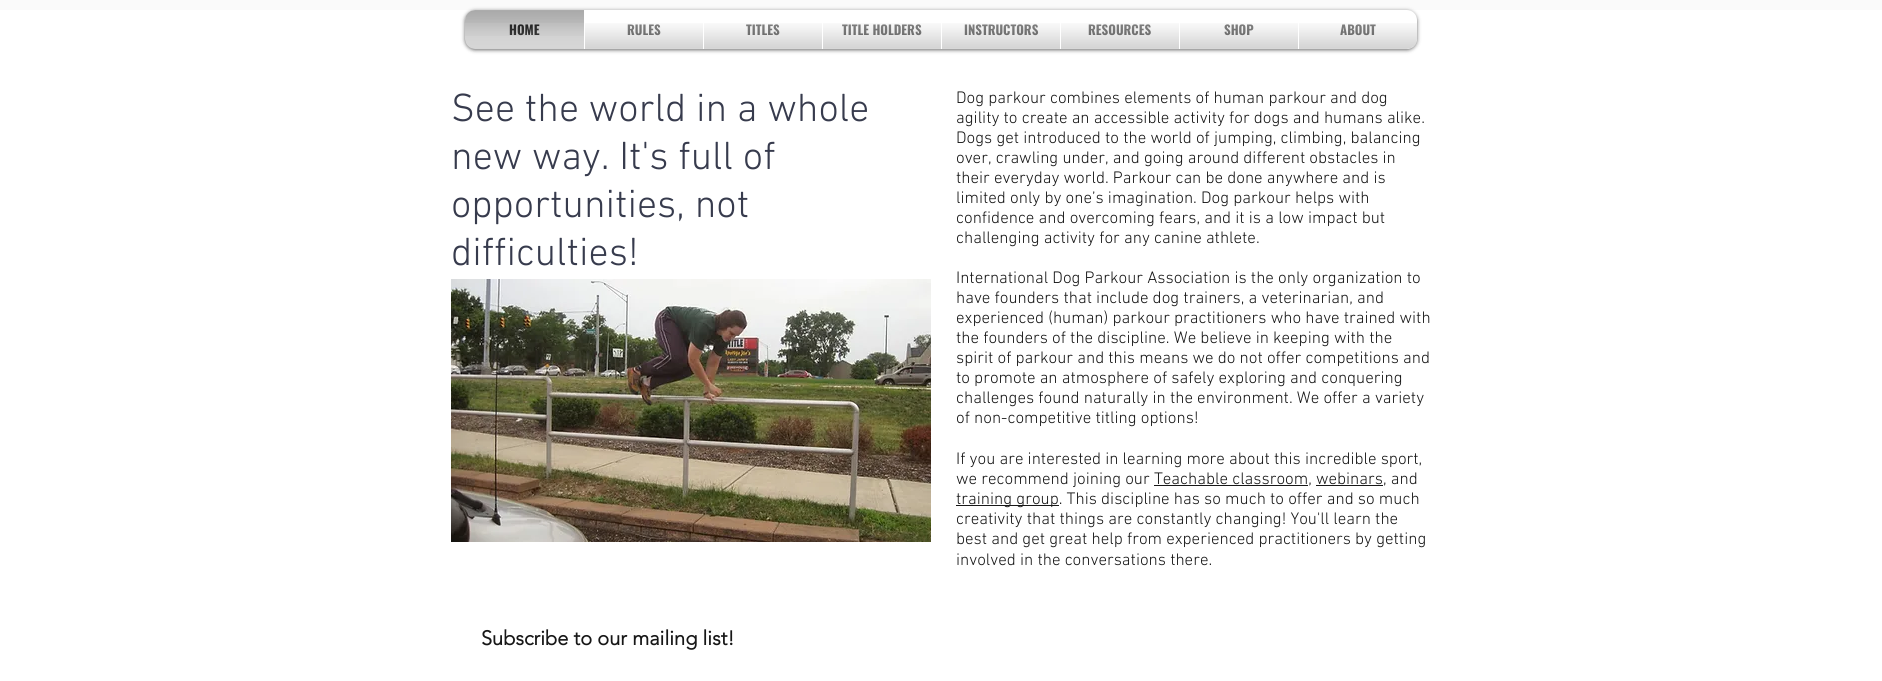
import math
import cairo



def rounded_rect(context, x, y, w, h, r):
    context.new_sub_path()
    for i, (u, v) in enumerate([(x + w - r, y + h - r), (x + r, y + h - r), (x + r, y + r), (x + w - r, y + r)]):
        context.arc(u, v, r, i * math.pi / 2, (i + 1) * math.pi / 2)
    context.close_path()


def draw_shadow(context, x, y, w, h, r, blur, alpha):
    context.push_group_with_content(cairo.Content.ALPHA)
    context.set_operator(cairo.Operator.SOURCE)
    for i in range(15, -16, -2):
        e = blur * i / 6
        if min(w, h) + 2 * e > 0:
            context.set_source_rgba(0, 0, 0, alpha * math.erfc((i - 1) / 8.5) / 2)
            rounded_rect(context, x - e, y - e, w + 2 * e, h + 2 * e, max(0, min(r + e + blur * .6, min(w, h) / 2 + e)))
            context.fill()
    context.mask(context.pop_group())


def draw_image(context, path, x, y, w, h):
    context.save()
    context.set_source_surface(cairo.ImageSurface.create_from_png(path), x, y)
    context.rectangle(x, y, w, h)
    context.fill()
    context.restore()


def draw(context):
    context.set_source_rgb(1, 1, 1)
    context.paint()
    context.set_source_rgb(250 / 255, 250 / 255, 250 / 255)
    context.rectangle(0, 0, 1882, 10)
    context.fill()
    context.set_source_rgb(0, 0, 0)
    draw_shadow(context, 465, 11, 952, 39, 10, 2, 0.6)
    draw_image(context, "images/1.png", 465, 39, 952, 10)
    context.set_source_rgb(204 / 255, 204 / 255, 204 / 255)
    context.new_path()
    context.move_to(475, 10)
    context.line_to(584, 10)
    context.line_to(584, 49)
    context.line_to(475, 49)
    context.curve_to(469.5, 49, 465, 44.5, 465, 39)
    context.line_to(465, 20)
    context.curve_to(465, 14.5, 469.5, 10, 475, 10)
    context.close_path()
    context.fill()
    context.set_source_rgb(1, 1, 1)
    context.rectangle(584, 10, 714, 39)
    context.fill()
    context.new_path()
    context.move_to(1298, 10)
    context.line_to(1407, 10)
    context.curve_to(1412.5, 10, 1417, 14.5, 1417, 20)
    context.line_to(1417, 39)
    context.curve_to(1417, 44.5, 1412.5, 49, 1407, 49)
    context.line_to(1298, 49)
    context.close_path()
    context.fill()
    context.set_source_rgb(23 / 255, 23 / 255, 23 / 255)
    context.rectangle(1154, 485, 154, 1)
    context.fill()
    context.rectangle(1316, 485, 67, 1)
    context.fill()
    context.rectangle(956, 505, 103, 1)
    context.fill()
    draw_image(context, "images/18.png", 451, 279, 480, 263)
    context.select_font_face("Oswald", cairo.FontSlant.NORMAL, cairo.FontWeight.BOLD)
    context.set_font_size(13)
    context.move_to(509, 35)
    context.show_text("HOME")
    draw_image(context, "images/2.png", 465, 10, 119, 26)
    draw_image(context, "images/3.png", 465, 23, 119, 26)
    context.set_source_rgb(112 / 255, 112 / 255, 112 / 255)
    context.move_to(627, 35)
    context.show_text("RULES")
    draw_image(context, "images/4.png", 628, 24, 33, 11)
    draw_image(context, "images/5.png", 585, 23, 118, 26)
    context.move_to(746, 35)
    context.show_text("TITLES")
    draw_image(context, "images/6.png", 746, 24, 34, 11)
    draw_image(context, "images/7.png", 704, 23, 118, 26)
    context.move_to(842, 35)
    context.show_text("TITLE HOLDERS")
    draw_image(context, "images/8.png", 842, 24, 80, 11)
    draw_image(context, "images/9.png", 823, 23, 118, 26)
    context.move_to(964, 35)
    context.show_text("INSTRUCTORS")
    draw_image(context, "images/10.png", 964, 24, 74, 11)
    draw_image(context, "images/11.png", 942, 23, 118, 26)
    context.move_to(1088, 35)
    context.show_text("RESOURCES")
    draw_image(context, "images/12.png", 1089, 24, 62, 11)
    draw_image(context, "images/13.png", 1061, 23, 118, 26)
    context.move_to(1224, 35)
    context.show_text("SHOP")
    draw_image(context, "images/14.png", 1225, 24, 29, 11)
    draw_image(context, "images/15.png", 1180, 23, 118, 26)
    context.move_to(1340, 35)
    context.show_text("ABOUT")
    draw_image(context, "images/16.png", 1340, 24, 36, 11)
    draw_image(context, "images/17.png", 1299, 23, 118, 26)
    context.select_font_face("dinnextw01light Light")
    context.set_font_size(40)
    context.set_source_rgb(55 / 255, 59 / 255, 77 / 255)
    context.move_to(451, 121)
    context.show_text("See the world in a whole")
    context.move_to(451, 169)
    context.show_text("new way. It's full of")
    context.move_to(451, 217)
    context.show_text("opportunities, not")
    context.move_to(451, 265)
    context.show_text("difficulties!")
    context.set_font_size(17)
    context.set_source_rgb(23 / 255, 23 / 255, 23 / 255)
    context.move_to(956, 103)
    context.show_text("Dog parkour combines elements of human parkour and dog")
    context.move_to(956, 123)
    context.show_text("agility to create an accessible activity for dogs and humans alike.")
    context.move_to(956, 143)
    context.show_text("Dogs get introduced to the world of jumping, climbing, balancing")
    context.move_to(956, 163)
    context.show_text("over, crawling under, and going around different obstacles in")
    context.move_to(956, 183)
    context.show_text("their everyday world. Parkour can be done anywhere and is")
    context.move_to(956, 203)
    context.show_text("limited only by one’s imagination. Dog parkour helps with")
    context.move_to(956, 223)
    context.show_text("confidence and overcoming fears, and it is a low impact but")
    context.move_to(956, 243)
    context.show_text("challenging activity for any canine athlete.")
    context.move_to(956, 283)
    context.show_text("International Dog Parkour Association is the only organization to")
    context.move_to(956, 303)
    context.show_text("have founders that include dog trainers, a veterinarian, and")
    context.move_to(956, 323)
    context.show_text("experienced (human) parkour practitioners who have trained with")
    context.move_to(956, 343)
    context.show_text("the founders of the discipline. We believe in keeping with the")
    context.move_to(956, 363)
    context.show_text("spirit of parkour and this means we do not offer competitions and")
    context.move_to(956, 383)
    context.show_text("to promote an atmosphere of safely exploring and conquering")
    context.move_to(956, 403)
    context.show_text("challenges found naturally in the environment. We offer a variety")
    context.move_to(956, 423)
    context.show_text("of non-competitive titling options!")
    context.move_to(956, 464)
    context.show_text("If you are interested in learning more about this incredible sport,")
    context.move_to(956, 484)
    context.show_text("we recommend joining our Teachable classroom, webinars, and")
    context.move_to(956, 504)
    context.show_text("training group. This discipline has so much to offer and so much")
    context.move_to(956, 524)
    context.show_text("creativity that things are constantly changing! You'll learn the")
    context.move_to(956, 544)
    context.show_text("best and get great help from experienced practitioners by getting")
    context.move_to(956, 565)
    context.show_text("involved in the conversations there.")
    context.select_font_face("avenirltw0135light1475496", cairo.FontSlant.NORMAL, cairo.FontWeight.BOLD)
    context.set_font_size(20)
    context.move_to(481, 645)
    context.show_text("Subscribe to our mailing list!")


surface = cairo.ImageSurface(cairo.Format.RGB24, 1882, 681)
context = cairo.Context(surface)
options = cairo.FontOptions()
options.set_hint_metrics(cairo.HintMetrics.OFF)
options.set_hint_style(cairo.HintStyle.NONE)
context.set_font_options(options)
context.set_miter_limit(4)
draw(context)
surface.write_to_png("out.png")
